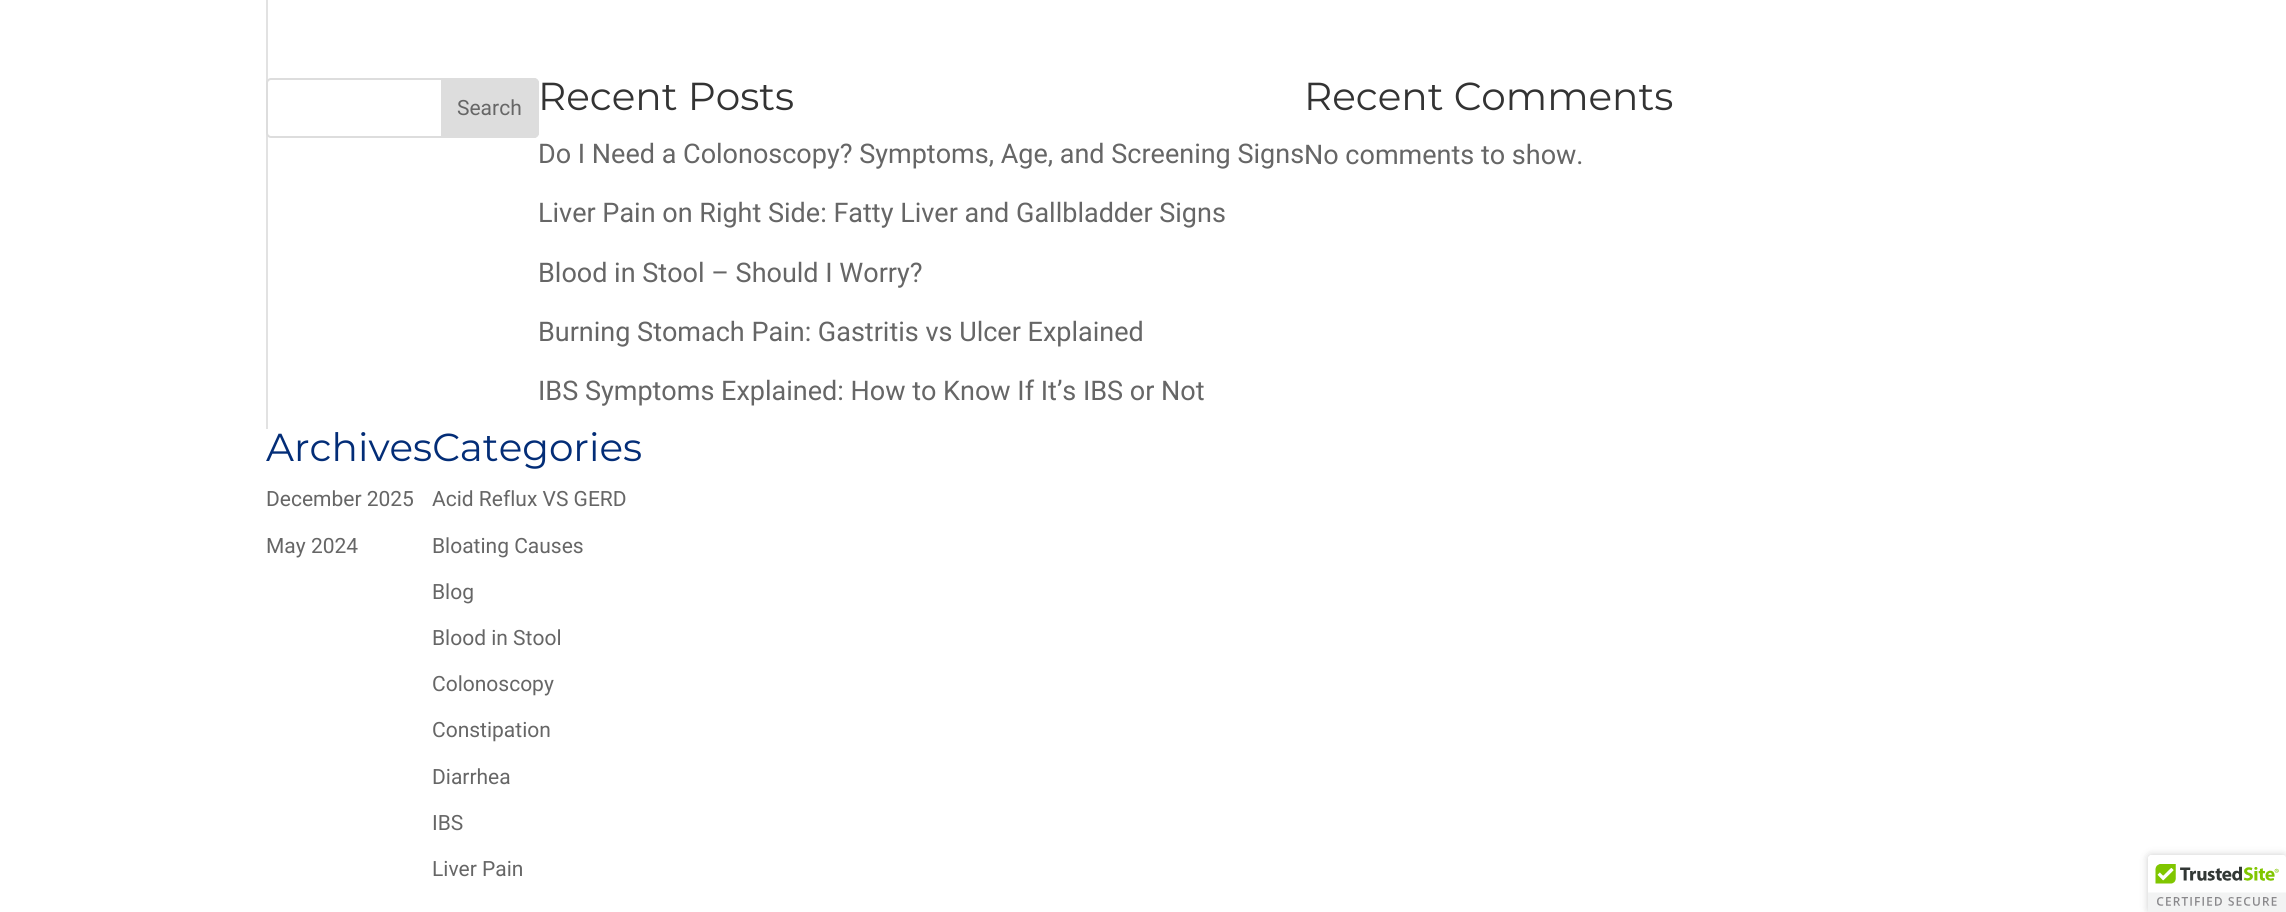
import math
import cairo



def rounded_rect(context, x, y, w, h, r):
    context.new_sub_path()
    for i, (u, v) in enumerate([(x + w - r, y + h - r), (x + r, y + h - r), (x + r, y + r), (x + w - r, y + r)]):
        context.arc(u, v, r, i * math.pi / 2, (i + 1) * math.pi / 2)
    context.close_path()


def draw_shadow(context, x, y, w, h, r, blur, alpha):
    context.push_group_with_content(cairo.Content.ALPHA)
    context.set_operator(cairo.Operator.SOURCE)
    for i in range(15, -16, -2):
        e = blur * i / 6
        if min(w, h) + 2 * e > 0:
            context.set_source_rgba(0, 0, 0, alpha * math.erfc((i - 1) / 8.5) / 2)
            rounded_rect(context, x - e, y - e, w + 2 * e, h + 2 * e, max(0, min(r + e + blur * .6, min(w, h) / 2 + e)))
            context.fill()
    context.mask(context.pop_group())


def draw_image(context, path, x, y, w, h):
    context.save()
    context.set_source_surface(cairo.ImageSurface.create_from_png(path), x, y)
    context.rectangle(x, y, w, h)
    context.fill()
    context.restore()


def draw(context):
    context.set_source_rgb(1, 1, 1)
    context.paint()
    context.set_source_rgb(226 / 255, 226 / 255, 226 / 255)
    context.rectangle(266, 0, 2, 429)
    context.fill()
    context.set_source_rgb(1, 1, 1)
    rounded_rect(context, 267, 79, 271, 58, 4)
    context.fill_preserve()
    context.set_source_rgb(221 / 255, 221 / 255, 221 / 255)
    context.stroke()
    context.new_path()
    context.move_to(442, 79)
    context.line_to(534, 79)
    context.curve_to(536, 79, 538, 81, 538, 83)
    context.line_to(538, 133)
    context.curve_to(538, 135, 536, 137, 534, 137)
    context.line_to(442, 137)
    context.close_path()
    context.fill_preserve()
    context.stroke()
    context.set_source_rgb(0, 0, 0)
    draw_shadow(context, 2148, 855, 138, 57, 3, 4, 0.2)
    context.set_source_rgb(1, 1, 1)
    context.new_path()
    context.move_to(2151, 855)
    context.line_to(2286, 855)
    context.line_to(2286, 912)
    context.line_to(2148, 912)
    context.line_to(2148, 858)
    context.curve_to(2148, 856.5, 2149.5, 855, 2151, 855)
    context.close_path()
    context.fill()
    draw_image(context, "images/1.png", 2148, 855, 138, 57)
    context.select_font_face("Roboto")
    context.set_font_size(21)
    context.set_source_rgb(102 / 255, 102 / 255, 102 / 255)
    context.move_to(457, 115)
    context.show_text("Search")
    context.select_font_face("Montserrat")
    context.set_font_size(39)
    context.set_source_rgb(51 / 255, 51 / 255, 51 / 255)
    context.move_to(538, 110)
    context.show_text("Recent Posts")
    context.select_font_face("Roboto")
    context.set_font_size(27)
    context.set_source_rgb(102 / 255, 102 / 255, 102 / 255)
    context.move_to(538, 163)
    context.show_text("Do I Need a Colonoscopy? Symptoms, Age, and Screening Signs")
    context.move_to(538, 222)
    context.show_text("Liver Pain on Right Side: Fatty Liver and Gallbladder Signs")
    context.move_to(538, 282)
    context.show_text("Blood in Stool – Should I Worry?")
    context.move_to(538, 341)
    context.show_text("Burning Stomach Pain: Gastritis vs Ulcer Explained")
    context.move_to(538, 400)
    context.show_text("IBS Symptoms Explained: How to Know If It’s IBS or Not")
    context.select_font_face("Montserrat")
    context.set_font_size(39)
    context.set_source_rgb(51 / 255, 51 / 255, 51 / 255)
    context.move_to(1304, 110)
    context.show_text("Recent Comments")
    context.select_font_face("Roboto")
    context.set_font_size(27)
    context.set_source_rgb(102 / 255, 102 / 255, 102 / 255)
    context.move_to(1304, 164)
    context.show_text("No comments to show.")
    context.select_font_face("Montserrat")
    context.set_font_size(39)
    context.set_source_rgb(3 / 255, 45 / 255, 119 / 255)
    context.move_to(266, 461)
    context.show_text("ArchivesCategories")
    context.select_font_face("Roboto")
    context.set_font_size(21)
    context.set_source_rgb(102 / 255, 102 / 255, 102 / 255)
    context.move_to(266, 506)
    context.show_text("December 2025")
    context.move_to(266, 553)
    context.show_text("May 2024")
    context.move_to(432, 506)
    context.show_text("Acid Reflux VS GERD")
    context.move_to(432, 553)
    context.show_text("Bloating Causes")
    context.move_to(432, 599)
    context.show_text("Blog")
    context.move_to(432, 645)
    context.show_text("Blood in Stool")
    context.move_to(432, 691)
    context.show_text("Colonoscopy")
    context.move_to(432, 737)
    context.show_text("Constipation")
    context.move_to(432, 784)
    context.show_text("Diarrhea")
    context.move_to(432, 830)
    context.show_text("IBS")
    context.move_to(432, 876)
    context.show_text("Liver Pain")


surface = cairo.ImageSurface(cairo.Format.RGB24, 2286, 912)
context = cairo.Context(surface)
options = cairo.FontOptions()
options.set_hint_metrics(cairo.HintMetrics.OFF)
options.set_hint_style(cairo.HintStyle.NONE)
context.set_font_options(options)
context.set_miter_limit(4)
draw(context)
surface.write_to_png("out.png")
